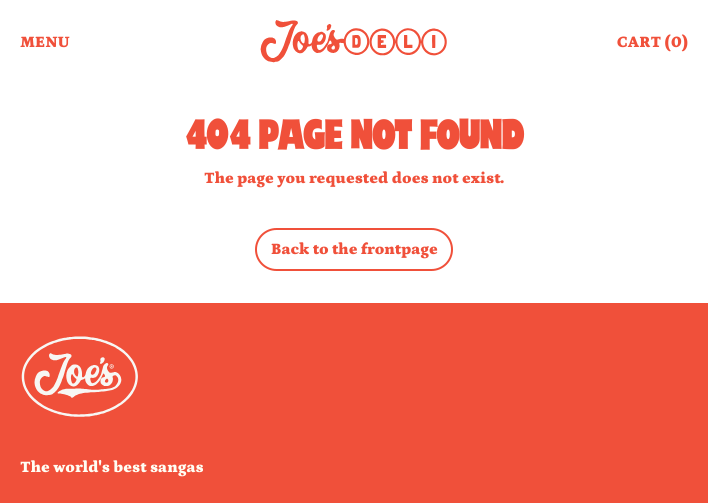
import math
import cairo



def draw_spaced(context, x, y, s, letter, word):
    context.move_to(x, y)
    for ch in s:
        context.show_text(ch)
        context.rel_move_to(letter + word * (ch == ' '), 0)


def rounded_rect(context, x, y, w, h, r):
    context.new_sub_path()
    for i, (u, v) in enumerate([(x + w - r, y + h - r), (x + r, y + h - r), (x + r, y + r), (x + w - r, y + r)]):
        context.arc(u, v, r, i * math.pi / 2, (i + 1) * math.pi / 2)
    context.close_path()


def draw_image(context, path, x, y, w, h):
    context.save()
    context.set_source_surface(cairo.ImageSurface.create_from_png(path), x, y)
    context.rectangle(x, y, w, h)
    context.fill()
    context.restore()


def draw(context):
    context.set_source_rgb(1, 1, 1)
    context.paint()
    draw_image(context, "images/1.png", 260, 20, 187, 43)
    rounded_rect(context, 256, 229, 196, 41, 20.5)
    context.set_source_rgb(240 / 255, 80 / 255, 58 / 255)
    context.stroke()
    context.rectangle(0, 303, 708, 200)
    context.fill()
    draw_image(context, "images/2.png", 21, 336, 117, 81)
    context.select_font_face("Petrona Black")
    context.set_font_size(16)
    context.move_to(20, 47)
    context.show_text("MENU")
    context.move_to(617, 47)
    context.show_text("CART (0)")
    context.select_font_face("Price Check")
    context.set_font_size(42.75)
    draw_spaced(context, 184, 149, "404 PAGE NOT FOUND", -1.1, 0)
    context.select_font_face("Petrona Black")
    context.set_font_size(16)
    context.move_to(204, 183)
    context.show_text("The page you requested does not exist.")
    context.move_to(271, 254)
    context.show_text("Back to the frontpage")
    context.set_source_rgb(1, 254 / 255, 244 / 255)
    context.move_to(20, 472)
    context.show_text("The world's best sangas")


surface = cairo.ImageSurface(cairo.Format.RGB24, 708, 503)
context = cairo.Context(surface)
options = cairo.FontOptions()
options.set_hint_metrics(cairo.HintMetrics.OFF)
options.set_hint_style(cairo.HintStyle.NONE)
context.set_font_options(options)
context.set_miter_limit(4)
draw(context)
surface.write_to_png("out.png")
